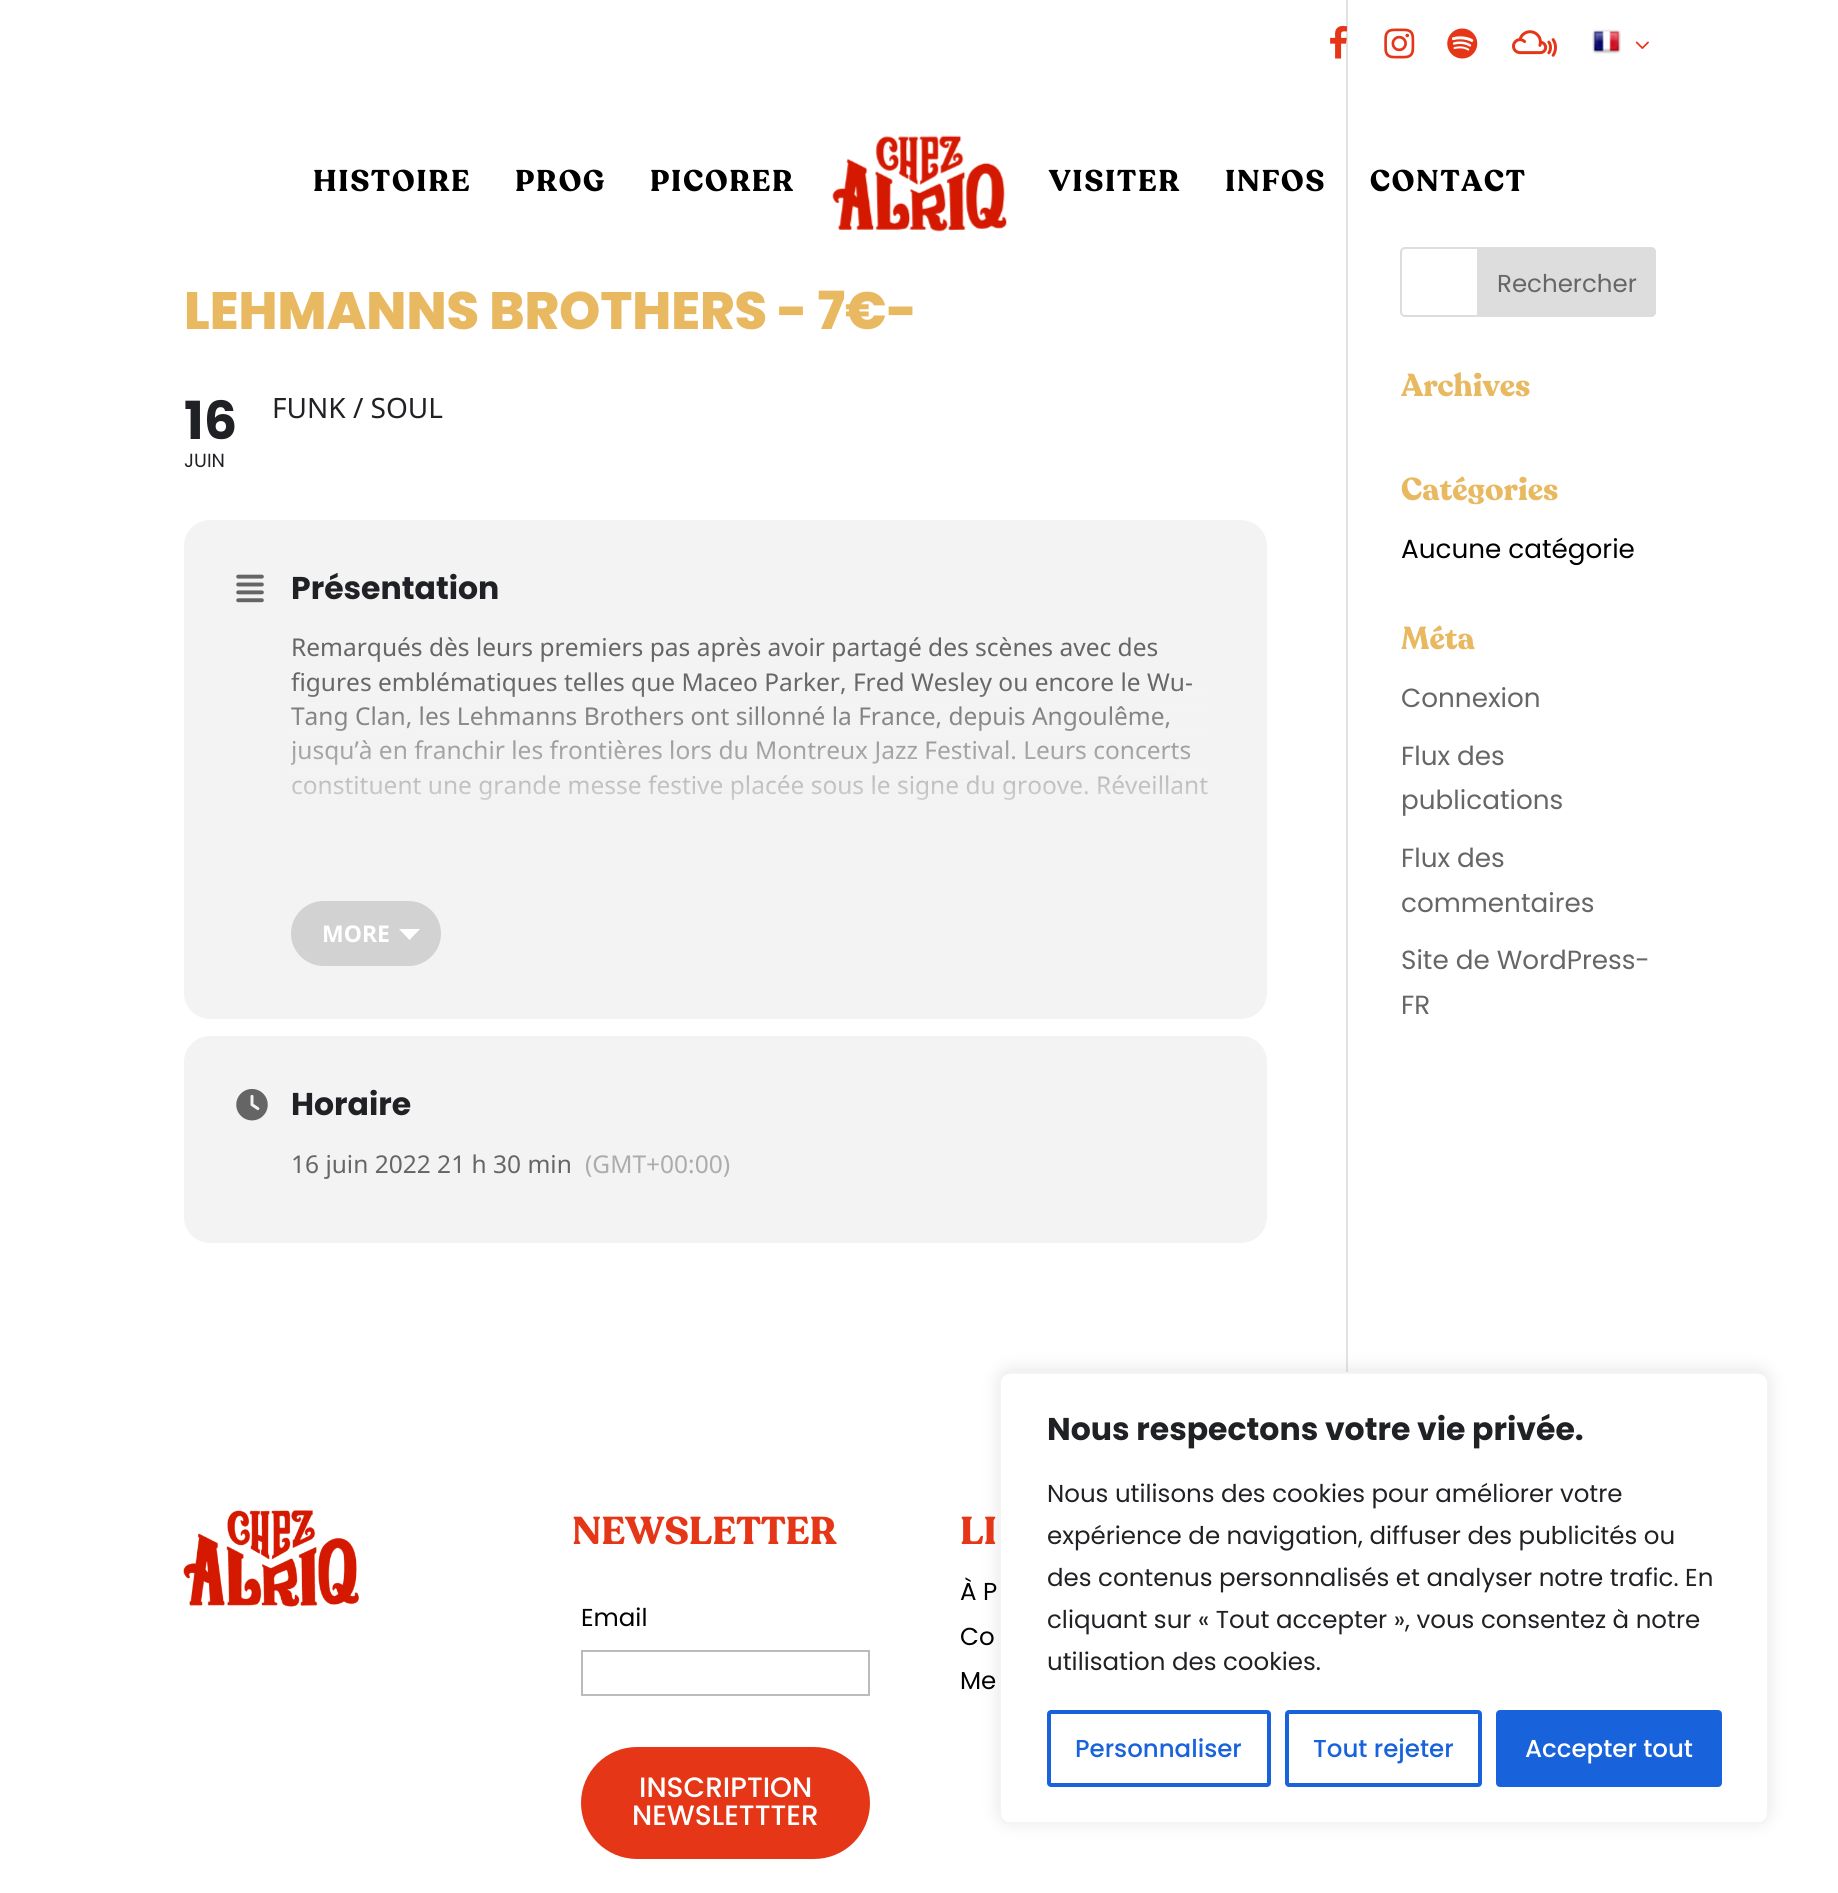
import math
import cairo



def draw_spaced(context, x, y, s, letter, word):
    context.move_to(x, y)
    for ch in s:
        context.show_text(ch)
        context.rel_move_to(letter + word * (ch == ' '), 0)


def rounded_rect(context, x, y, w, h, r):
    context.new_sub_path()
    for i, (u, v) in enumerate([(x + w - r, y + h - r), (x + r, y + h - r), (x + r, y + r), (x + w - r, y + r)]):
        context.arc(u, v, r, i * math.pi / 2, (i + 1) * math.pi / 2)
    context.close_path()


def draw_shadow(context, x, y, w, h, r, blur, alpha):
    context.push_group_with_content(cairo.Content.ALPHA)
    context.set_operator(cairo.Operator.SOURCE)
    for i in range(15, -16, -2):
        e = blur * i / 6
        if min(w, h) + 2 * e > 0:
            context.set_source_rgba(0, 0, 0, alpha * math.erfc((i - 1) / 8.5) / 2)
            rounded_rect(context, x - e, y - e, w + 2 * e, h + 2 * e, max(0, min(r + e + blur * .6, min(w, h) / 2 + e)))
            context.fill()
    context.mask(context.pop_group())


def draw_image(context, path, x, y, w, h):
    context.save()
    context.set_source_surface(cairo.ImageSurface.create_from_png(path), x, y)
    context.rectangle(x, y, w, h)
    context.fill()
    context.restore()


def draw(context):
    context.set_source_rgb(1, 1, 1)
    context.paint()
    context.set_source_rgb(226 / 255, 226 / 255, 226 / 255)
    context.rectangle(1346, 0, 2, 1372)
    context.fill()
    draw_image(context, "images/1.png", 1330, 26, 17, 33)
    draw_image(context, "images/2.png", 1384, 28, 31, 31)
    draw_image(context, "images/3.png", 1447, 28, 31, 31)
    draw_image(context, "images/4.png", 1512, 30, 45, 27)
    draw_image(context, "images/5.png", 1592, 29, 29, 25)
    draw_image(context, "images/6.png", 1635, 41, 14, 8)
    draw_image(context, "images/7.png", 832, 135, 175, 97)
    context.set_source_rgb(243 / 255, 243 / 255, 243 / 255)
    rounded_rect(context, 184, 520, 1083, 499, 26)
    context.fill()
    draw_image(context, "images/8.png", 236, 574, 28, 29)
    context.set_source_rgb(210 / 255, 210 / 255, 210 / 255)
    rounded_rect(context, 291, 901, 150, 65, 32.5)
    context.fill()
    context.set_source_rgb(1, 1, 1)
    context.new_path()
    context.move_to(399, 929)
    context.line_to(420, 929)
    context.line_to(409.5, 940)
    context.close_path()
    context.fill()
    context.set_source_rgb(243 / 255, 243 / 255, 243 / 255)
    rounded_rect(context, 184, 1036, 1083, 207, 26)
    context.fill()
    draw_image(context, "images/9.png", 236, 1089, 32, 32)
    rounded_rect(context, 1401, 248, 254, 68, 4)
    context.set_source_rgb(221 / 255, 221 / 255, 221 / 255)
    context.stroke()
    context.new_path()
    context.move_to(1478, 248)
    context.line_to(1651, 248)
    context.curve_to(1653, 248, 1655, 250, 1655, 252)
    context.line_to(1655, 312)
    context.curve_to(1655, 314, 1653, 316, 1651, 316)
    context.line_to(1478, 316)
    context.close_path()
    context.fill_preserve()
    context.stroke()
    draw_image(context, "images/10.png", 183, 1510, 176, 97)
    context.rectangle(582, 1651, 287, 44)
    context.set_source_rgb(187 / 255, 187 / 255, 187 / 255)
    context.stroke()
    context.set_source_rgb(229 / 255, 54 / 255, 24 / 255)
    rounded_rect(context, 581, 1747, 289, 112, 56)
    context.fill()
    context.set_source_rgb(172 / 255, 171 / 255, 171 / 255)
    draw_shadow(context, 999, 1370, 770, 452, 11, 9, 0.3)
    context.set_source_rgb(1, 1, 1)
    rounded_rect(context, 1000, 1373, 768, 450, 10)
    context.fill_preserve()
    context.set_source_rgb(244 / 255, 244 / 255, 244 / 255)
    context.stroke()
    rounded_rect(context, 1049, 1712, 220, 73, 2)
    context.set_source_rgb(24 / 255, 99 / 255, 220 / 255)
    context.set_line_width(4)
    context.stroke()
    rounded_rect(context, 1287, 1712, 193, 73, 2)
    context.stroke()
    rounded_rect(context, 1498, 1712, 222, 73, 2)
    context.fill_preserve()
    context.stroke()
    context.select_font_face("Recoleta", cairo.FontSlant.NORMAL, cairo.FontWeight.BOLD)
    context.set_font_size(29.75)
    context.set_source_rgb(0, 0, 0)
    draw_spaced(context, 313, 191, "HISTOIRE", 1.75, 0)
    draw_spaced(context, 515, 191, "PROG", 1.75, 0)
    draw_spaced(context, 650, 191, "PICORER", 1.75, 0)
    draw_spaced(context, 1049, 191, "VISITER", 1.75, 0)
    draw_spaced(context, 1225, 191, "INFOS", 1.75, 0)
    draw_spaced(context, 1370, 191, "CONTACT", 1.75, 0)
    context.select_font_face("Poppins ExtraBold")
    context.set_font_size(52.5)
    context.set_source_rgb(232 / 255, 185 / 255, 97 / 255)
    context.move_to(184, 329)
    context.show_text("LEHMANNS BROTHERS - 7€-")
    context.select_font_face("Poppins", cairo.FontSlant.NORMAL, cairo.FontWeight.BOLD)
    context.set_source_rgb(32 / 255, 33 / 255, 36 / 255)
    context.move_to(184, 439)
    context.show_text("16")
    context.select_font_face("Poppins")
    context.set_font_size(19)
    context.move_to(184, 467)
    context.show_text("JUIN")
    context.select_font_face("Noto Sans")
    context.set_font_size(28)
    context.move_to(272, 418)
    context.show_text("FUNK / SOUL")
    context.select_font_face("Poppins", cairo.FontSlant.NORMAL, cairo.FontWeight.BOLD)
    context.set_font_size(31.5)
    context.move_to(291, 599)
    context.show_text("Présentation")
    context.select_font_face("Noto Sans")
    context.set_font_size(24.5)
    context.set_source_rgb(102 / 255, 102 / 255, 102 / 255)
    context.move_to(291, 656)
    context.show_text("Remarqués dès leurs premiers pas après avoir partagé des scènes avec des")
    context.move_to(291, 691)
    context.show_text("figures emblématiques telles que Maceo Parker, Fred Wesley ou encore le Wu-")
    context.move_to(291, 725)
    context.show_text("Tang Clan, les Lehmanns Brothers ont sillonné la France, depuis Angoulême,")
    context.save()
    context.rectangle(291, 630, 924, 263)
    context.clip()
    context.move_to(291, 759)
    context.show_text("jusqu’à en franchir les frontières lors du Montreux Jazz Festival. Leurs concerts")
    context.restore()
    context.move_to(291, 794)
    context.show_text("constituent une grande messe festive placée sous le signe du groove. Réveillant")
    gradient = cairo.LinearGradient(753, 893, 753, 630)
    gradient.add_color_stop_rgba(0.2, 243 / 255, 243 / 255, 243 / 255, 1)
    gradient.add_color_stop_rgba(0.8, 243 / 255, 243 / 255, 243 / 255, 0)
    context.set_source(gradient)
    context.rectangle(291, 686, 917, 114)
    context.fill()
    context.select_font_face("Noto Sans", cairo.FontSlant.NORMAL, cairo.FontWeight.BOLD)
    context.set_font_size(23)
    context.set_source_rgb(1, 1, 1)
    context.move_to(322, 942)
    context.show_text("MORE")
    context.select_font_face("Poppins", cairo.FontSlant.NORMAL, cairo.FontWeight.BOLD)
    context.set_font_size(31.5)
    context.set_source_rgb(32 / 255, 33 / 255, 36 / 255)
    context.move_to(291, 1115)
    context.show_text("Horaire")
    context.select_font_face("Noto Sans")
    context.set_font_size(24.5)
    context.set_source_rgb(102 / 255, 102 / 255, 102 / 255)
    context.move_to(291, 1173)
    context.show_text("16 juin 2022 21 h 30 min")
    context.set_source_rgb(172 / 255, 172 / 255, 172 / 255)
    context.move_to(585, 1173)
    context.show_text("(GMT+00:00)")
    context.select_font_face("Poppins")
    context.set_source_rgb(102 / 255, 102 / 255, 102 / 255)
    context.move_to(1497, 292)
    context.show_text("Rechercher")
    context.select_font_face("Recoleta", cairo.FontSlant.NORMAL, cairo.FontWeight.BOLD)
    context.set_font_size(31.5)
    context.set_source_rgb(232 / 255, 185 / 255, 97 / 255)
    context.move_to(1401, 396)
    context.show_text("Archives")
    context.move_to(1401, 500)
    context.show_text("Catégories")
    context.select_font_face("Poppins")
    context.set_font_size(26.25)
    context.set_source_rgb(0, 0, 0)
    context.move_to(1401, 558)
    context.show_text("Aucune catégorie")
    context.select_font_face("Recoleta", cairo.FontSlant.NORMAL, cairo.FontWeight.BOLD)
    context.set_font_size(31.5)
    context.set_source_rgb(232 / 255, 185 / 255, 97 / 255)
    context.move_to(1401, 649)
    context.show_text("Méta")
    context.select_font_face("Poppins")
    context.set_font_size(26.25)
    context.set_source_rgb(102 / 255, 102 / 255, 102 / 255)
    context.move_to(1401, 707)
    context.show_text("Connexion")
    context.move_to(1401, 765)
    context.show_text("Flux des")
    context.move_to(1401, 809)
    context.show_text("publications")
    context.move_to(1401, 867)
    context.show_text("Flux des")
    context.move_to(1401, 912)
    context.show_text("commentaires")
    context.move_to(1401, 969)
    context.show_text("Site de WordPress-")
    context.move_to(1401, 1014)
    context.show_text("FR")
    context.select_font_face("Recoleta", cairo.FontSlant.NORMAL, cairo.FontWeight.BOLD)
    context.set_font_size(38.5)
    context.set_source_rgb(229 / 255, 54 / 255, 24 / 255)
    context.move_to(572, 1544)
    context.show_text("NEWSLETTER")
    context.select_font_face("Poppins")
    context.set_font_size(24.5)
    context.set_source_rgb(0, 0, 0)
    context.move_to(581, 1626)
    context.show_text("Email")
    context.select_font_face("Poppins Medium")
    context.set_font_size(28)
    context.set_source_rgb(1, 1, 1)
    context.move_to(639, 1797)
    context.show_text("INSCRIPTION")
    context.move_to(632, 1825)
    context.show_text("NEWSLETTTER")
    context.select_font_face("Recoleta", cairo.FontSlant.NORMAL, cairo.FontWeight.BOLD)
    context.set_font_size(38.5)
    context.set_source_rgb(229 / 255, 54 / 255, 24 / 255)
    context.move_to(960, 1544)
    context.show_text("LI")
    context.select_font_face("Poppins")
    context.set_font_size(24.5)
    context.set_source_rgb(0, 0, 0)
    context.move_to(960, 1600)
    context.show_text("À P")
    context.move_to(960, 1645)
    context.show_text("Co")
    context.move_to(960, 1689)
    context.show_text("Me")
    context.select_font_face("Poppins", cairo.FontSlant.NORMAL, cairo.FontWeight.BOLD)
    context.set_font_size(31.5)
    context.set_source_rgb(32 / 255, 33 / 255, 36 / 255)
    context.move_to(1047, 1440)
    context.show_text("Nous respectons votre vie privée.")
    context.select_font_face("Poppins")
    context.set_font_size(24.5)
    context.move_to(1047, 1502)
    context.show_text("Nous utilisons des cookies pour améliorer votre")
    context.move_to(1047, 1544)
    context.show_text("expérience de navigation, diffuser des publicités ou")
    context.move_to(1047, 1586)
    context.show_text("des contenus personnalisés et analyser notre trafic. En")
    context.move_to(1047, 1628)
    context.show_text("cliquant sur « Tout accepter », vous consentez à notre")
    context.move_to(1047, 1670)
    context.show_text("utilisation des cookies.")
    context.select_font_face("Poppins Medium")
    context.set_source_rgb(24 / 255, 99 / 255, 220 / 255)
    context.move_to(1075, 1757)
    context.show_text("Personnaliser")
    context.move_to(1313, 1757)
    context.show_text("Tout rejeter")
    context.set_source_rgb(1, 1, 1)
    context.move_to(1525, 1757)
    context.show_text("Accepter tout")


surface = cairo.ImageSurface(cairo.Format.RGB24, 1838, 1893)
context = cairo.Context(surface)
options = cairo.FontOptions()
options.set_hint_metrics(cairo.HintMetrics.OFF)
options.set_hint_style(cairo.HintStyle.NONE)
context.set_font_options(options)
context.set_miter_limit(4)
draw(context)
surface.write_to_png("out.png")
